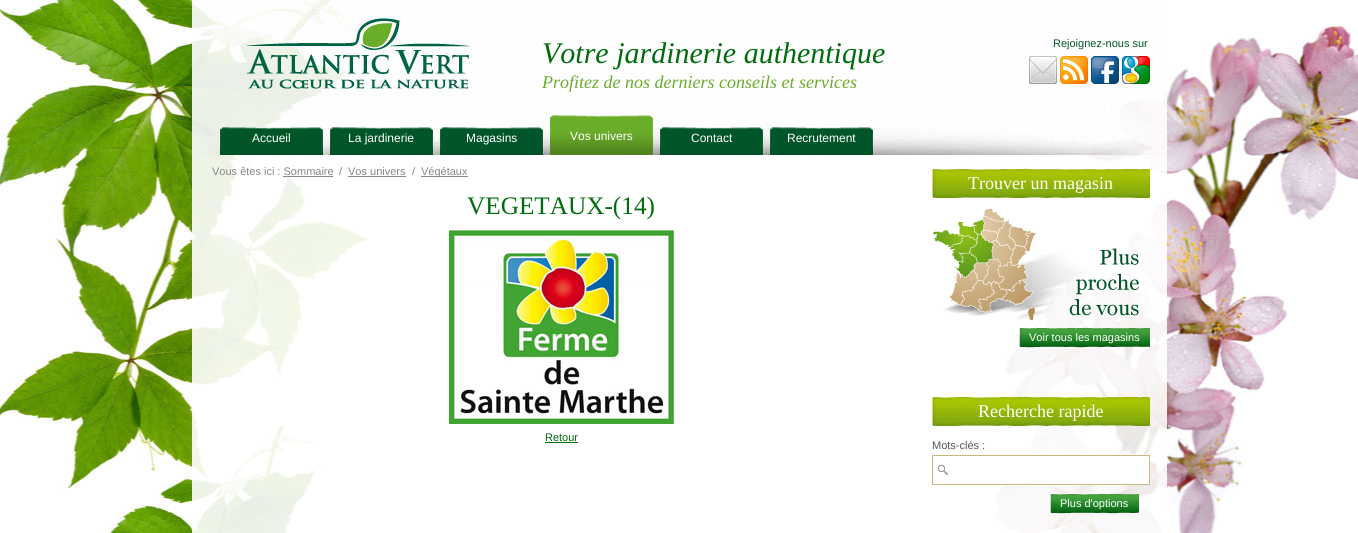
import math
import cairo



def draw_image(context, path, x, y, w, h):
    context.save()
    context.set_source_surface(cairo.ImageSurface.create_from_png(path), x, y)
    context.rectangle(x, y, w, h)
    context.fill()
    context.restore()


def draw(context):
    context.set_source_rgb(1, 1, 1)
    context.paint()
    draw_image(context, "images/1.png", 0, 0, 1358, 533)
    draw_image(context, "images/2.png", 192, 0, 975, 158)
    draw_image(context, "images/3.png", 1029, 56, 28, 28)
    draw_image(context, "images/4.png", 1060, 56, 28, 28)
    draw_image(context, "images/5.png", 1091, 56, 28, 28)
    draw_image(context, "images/6.png", 1122, 56, 28, 28)
    draw_image(context, "images/7.png", 220, 127, 103, 28)
    draw_image(context, "images/7.png", 330, 127, 103, 28)
    draw_image(context, "images/7.png", 440, 127, 103, 28)
    draw_image(context, "images/8.png", 550, 115, 103, 40)
    draw_image(context, "images/7.png", 660, 127, 103, 28)
    draw_image(context, "images/7.png", 770, 127, 103, 28)
    context.set_source_rgba(1, 1, 1, 0.9)
    context.rectangle(192, 158, 975, 375)
    context.fill()
    context.set_source_rgb(135 / 255, 135 / 255, 135 / 255)
    context.rectangle(283, 176, 50, 1)
    context.fill()
    context.rectangle(348, 176, 58, 1)
    context.fill()
    context.rectangle(421, 176, 47, 1)
    context.fill()
    draw_image(context, "images/9.png", 449, 230, 225, 194)
    context.set_source_rgb(0, 108 / 255, 13 / 255)
    context.rectangle(545, 442, 33, 1)
    context.fill()
    draw_image(context, "images/10.png", 932, 168, 218, 30)
    draw_image(context, "images/11.png", 933, 208, 206, 113)
    draw_image(context, "images/12.png", 1019, 327, 131, 21)
    draw_image(context, "images/13.png", 932, 396, 218, 30)
    context.set_source_rgb(1, 1, 1)
    context.rectangle(1008, 456, 141, 28)
    context.fill()
    draw_image(context, "images/14.png", 938, 465, 10, 10)
    context.rectangle(932.5, 455.5, 217, 29)
    context.set_source_rgb(197 / 255, 184 / 255, 129 / 255)
    context.set_line_width(1)
    context.stroke()
    draw_image(context, "images/15.png", 1050, 493, 89, 21)
    context.select_font_face("Liberation Serif", cairo.FontSlant.ITALIC)
    context.set_font_size(30)
    context.set_source_rgb(0, 108 / 255, 13 / 255)
    context.move_to(542, 63)
    context.show_text("Votre jardinerie authentique")
    context.set_font_size(18)
    context.set_source_rgb(106 / 255, 173 / 255, 41 / 255)
    context.move_to(542, 88)
    context.show_text("Profitez de nos derniers conseils et services")
    context.select_font_face("Liberation Sans")
    context.set_font_size(11)
    context.set_source_rgb(0, 86 / 255, 41 / 255)
    context.move_to(1053, 47)
    context.show_text("Rejoignez-nous sur")
    context.set_font_size(12)
    context.set_source_rgb(1, 1, 1)
    context.move_to(252, 142)
    context.show_text("Accueil")
    context.move_to(348, 142)
    context.show_text("La jardinerie")
    context.move_to(466, 142)
    context.show_text("Magasins")
    context.move_to(570, 140)
    context.show_text("Vos univers")
    context.move_to(691, 142)
    context.show_text("Contact")
    context.move_to(787, 142)
    context.show_text("Recrutement")
    context.set_font_size(11)
    context.set_source_rgb(135 / 255, 135 / 255, 135 / 255)
    context.move_to(212, 175)
    context.show_text("Vous êtes ici : Sommaire")
    context.move_to(339, 175)
    context.show_text("/")
    context.move_to(348, 175)
    context.show_text("Vos univers")
    context.move_to(412, 175)
    context.show_text("/")
    context.move_to(421, 175)
    context.show_text("Végétaux")
    context.select_font_face("Liberation Serif")
    context.set_font_size(25.25)
    context.set_source_rgb(0, 108 / 255, 13 / 255)
    context.move_to(467, 214)
    context.show_text("VEGETAUX-(14)")
    context.select_font_face("Liberation Sans")
    context.set_font_size(11)
    context.move_to(545, 441)
    context.show_text("Retour")
    context.select_font_face("Liberation Serif")
    context.set_font_size(18)
    context.set_source_rgb(1, 1, 1)
    context.move_to(968, 189)
    context.show_text("Trouver un magasin")
    context.select_font_face("Liberation Sans")
    context.set_font_size(11)
    context.move_to(1029, 341)
    context.show_text("Voir tous les magasins")
    context.select_font_face("Liberation Serif")
    context.set_font_size(18)
    context.move_to(978, 417)
    context.show_text("Recherche rapide")
    context.select_font_face("Liberation Sans")
    context.set_font_size(11)
    context.set_source_rgb(87 / 255, 87 / 255, 87 / 255)
    context.move_to(932, 449)
    context.show_text("Mots-clés :")
    context.set_source_rgb(1, 1, 1)
    context.move_to(1060, 507)
    context.show_text("Plus d'options")


surface = cairo.ImageSurface(cairo.Format.RGB24, 1358, 533)
context = cairo.Context(surface)
options = cairo.FontOptions()
options.set_hint_metrics(cairo.HintMetrics.OFF)
options.set_hint_style(cairo.HintStyle.NONE)
context.set_font_options(options)
context.set_miter_limit(4)
draw(context)
surface.write_to_png("out.png")
